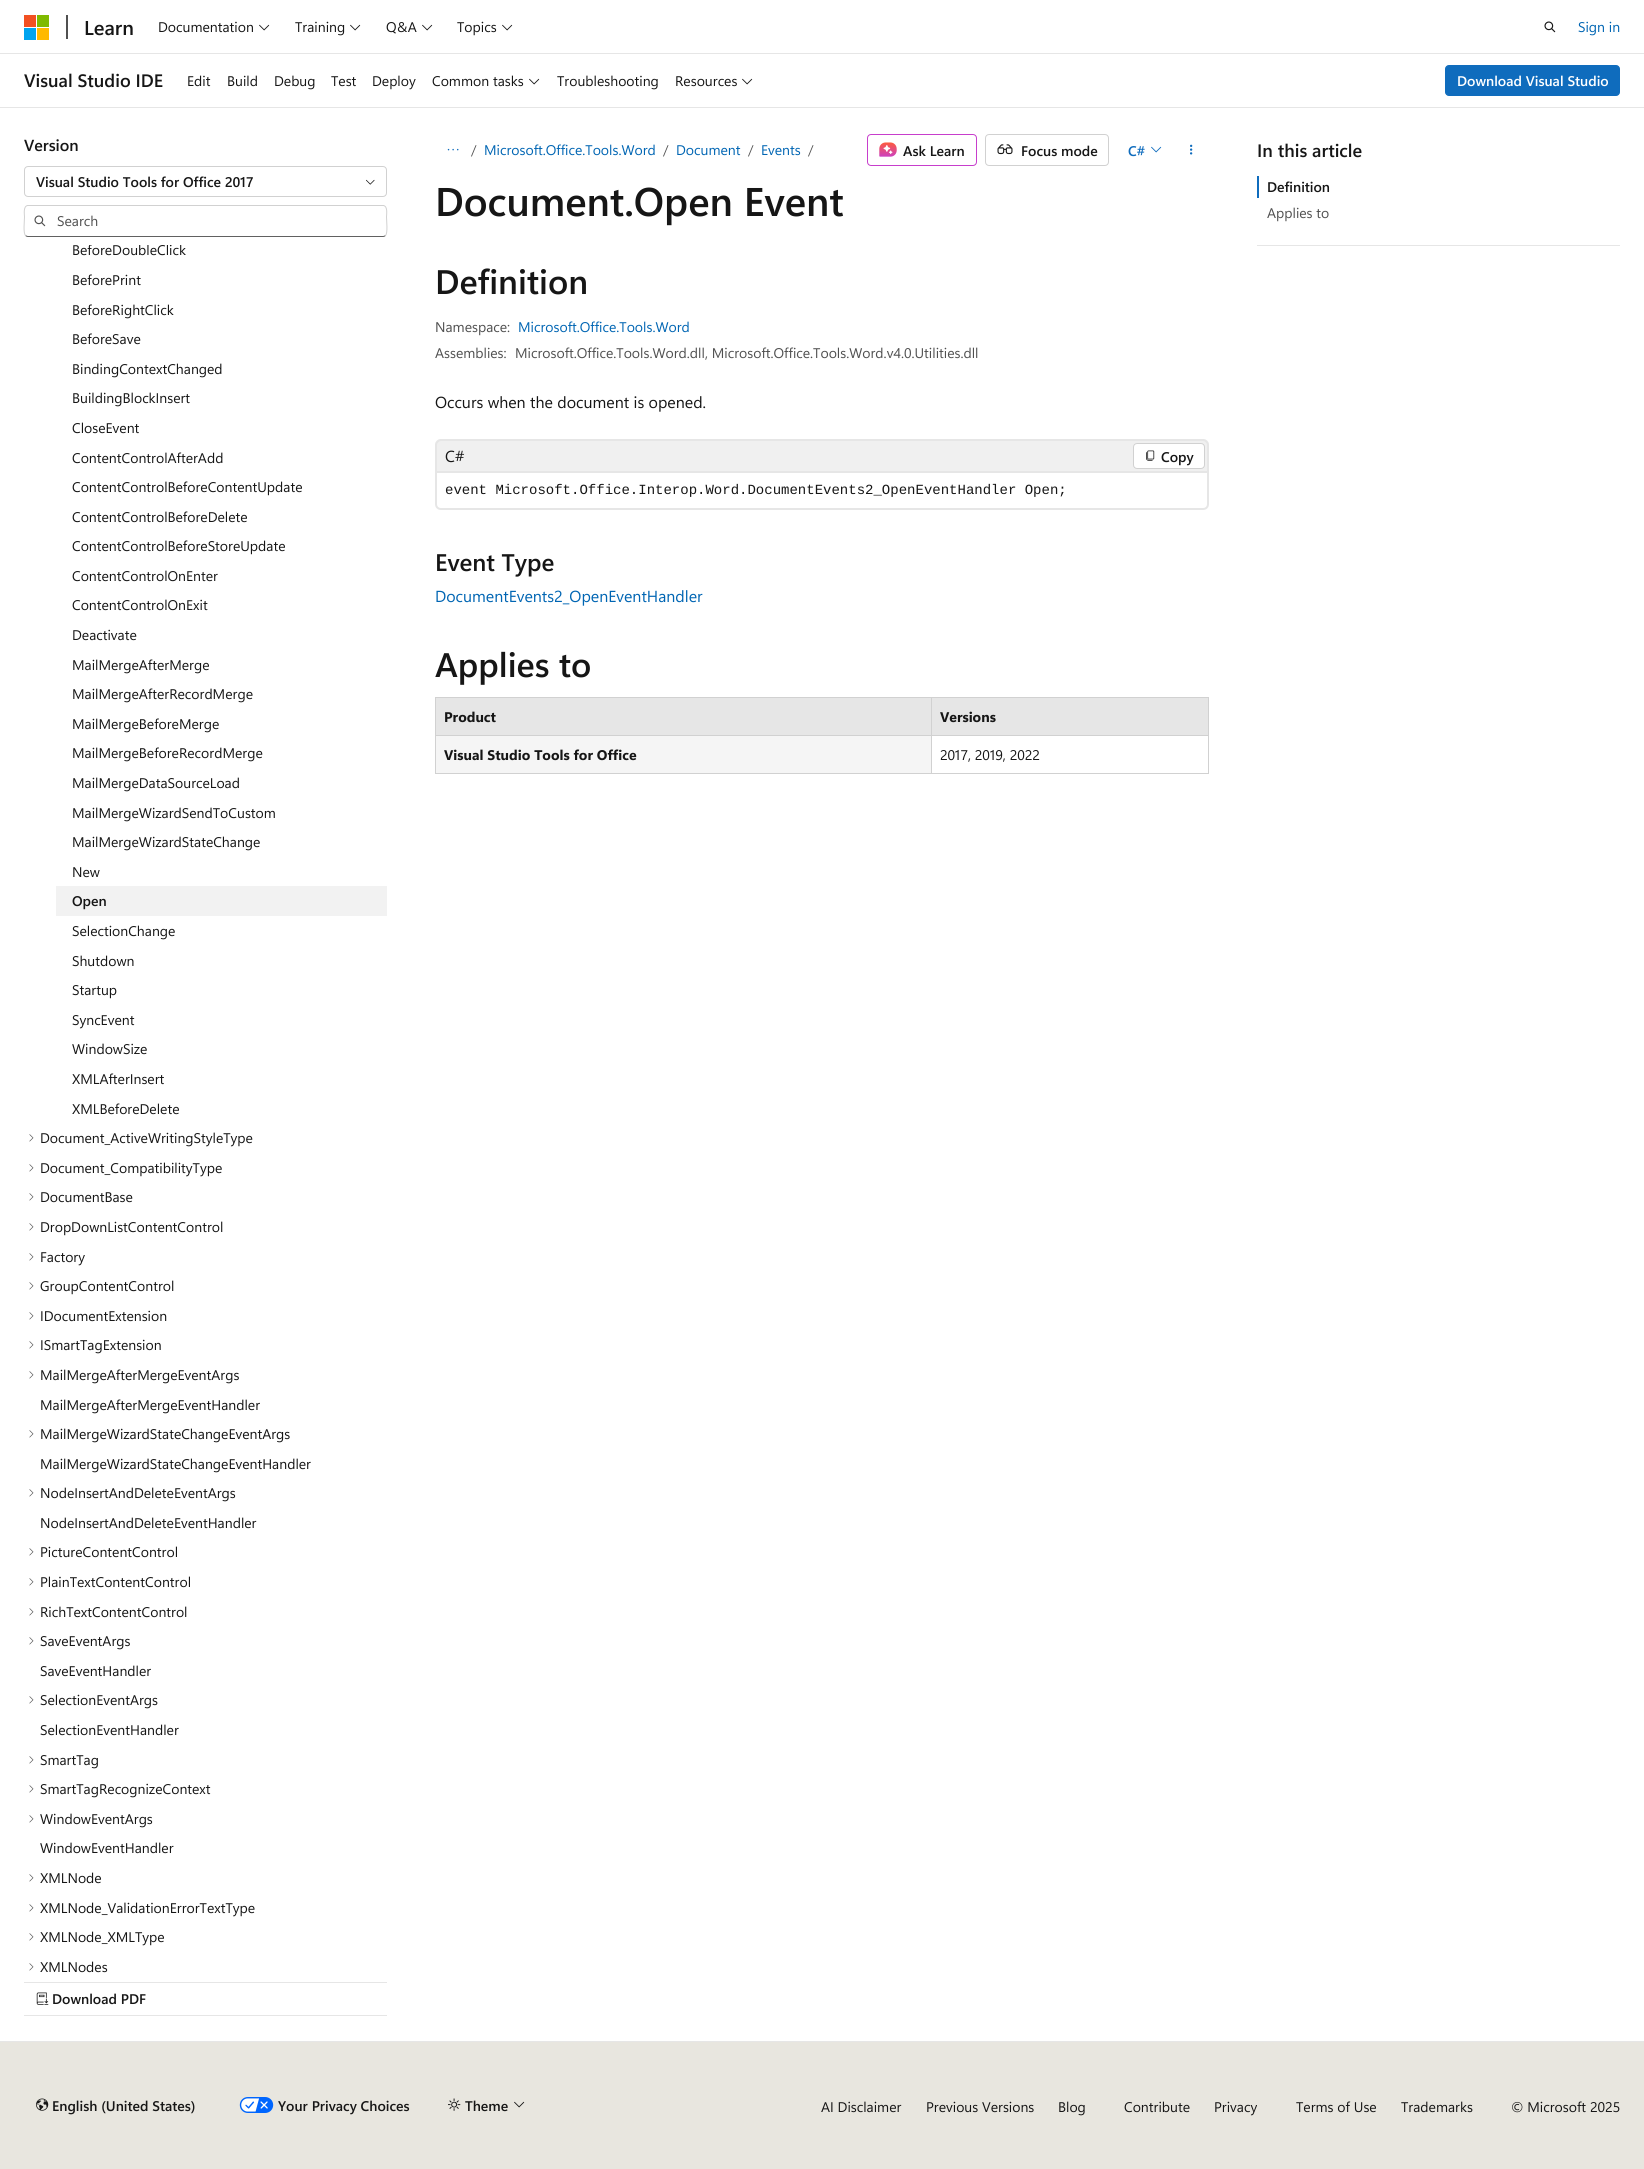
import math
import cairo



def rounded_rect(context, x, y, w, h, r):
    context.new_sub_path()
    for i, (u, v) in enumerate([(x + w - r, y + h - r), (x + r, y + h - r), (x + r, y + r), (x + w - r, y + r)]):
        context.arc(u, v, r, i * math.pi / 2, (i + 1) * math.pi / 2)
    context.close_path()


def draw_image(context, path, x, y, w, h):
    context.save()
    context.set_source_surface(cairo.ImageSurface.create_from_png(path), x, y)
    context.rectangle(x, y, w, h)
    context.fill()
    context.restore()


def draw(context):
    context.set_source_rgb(1, 1, 1)
    context.paint()
    context.set_source_rgb(230 / 255, 230 / 255, 230 / 255)
    context.rectangle(0, 53, 1644, 1)
    context.fill()
    context.set_source_rgb(242 / 255, 80 / 255, 34 / 255)
    context.rectangle(24, 15, 12, 12)
    context.fill()
    context.set_source_rgb(127 / 255, 186 / 255, 0)
    context.rectangle(37, 15, 12, 12)
    context.fill()
    context.set_source_rgb(0, 164 / 255, 239 / 255)
    context.rectangle(24, 28, 12, 12)
    context.fill()
    context.set_source_rgb(1, 185 / 255, 0)
    context.rectangle(37, 28, 12, 12)
    context.fill()
    context.set_source_rgb(80 / 255, 80 / 255, 80 / 255)
    context.rectangle(66, 15, 2, 24)
    context.fill()
    draw_image(context, "images/1.png", 259, 24, 11, 7)
    draw_image(context, "images/1.png", 350, 24, 11, 7)
    draw_image(context, "images/1.png", 422, 24, 11, 7)
    draw_image(context, "images/1.png", 502, 24, 11, 7)
    draw_image(context, "images/2.png", 1544, 21, 12, 12)
    context.set_source_rgb(230 / 255, 230 / 255, 230 / 255)
    context.rectangle(0, 107, 1644, 1)
    context.fill()
    draw_image(context, "images/1.png", 529, 78, 11, 7)
    draw_image(context, "images/1.png", 742, 78, 11, 7)
    context.set_source_rgb(15 / 255, 108 / 255, 189 / 255)
    rounded_rect(context, 1445.5, 65.5, 174, 30, 3.5)
    context.fill_preserve()
    context.set_line_width(1)
    context.stroke()
    rounded_rect(context, 24.5, 166.5, 362, 30, 3.5)
    context.set_source_rgb(209 / 255, 209 / 255, 209 / 255)
    context.stroke()
    draw_image(context, "images/3.png", 366, 179, 9, 6)
    context.new_path()
    context.move_to(385.5, 235.5)
    context.curve_to(385, 236, 384, 236.5, 383, 236.5)
    context.line_to(28, 236.5)
    context.curve_to(27, 236.5, 26, 236, 25.5, 235.5)
    context.set_source_rgb(97 / 255, 97 / 255, 97 / 255)
    context.stroke()
    context.new_path()
    context.move_to(25.5, 235.5)
    context.curve_to(23, 233, 24.5, 220.5, 24.5, 217)
    context.curve_to(24.5, 214.5, 23, 206.5, 27.5, 205.5)
    context.line_to(383.5, 205.5)
    context.curve_to(388, 206.5, 386.5, 214.5, 386.5, 217)
    context.curve_to(386.5, 220.5, 388, 233, 385.5, 235.5)
    context.set_source_rgb(209 / 255, 209 / 255, 209 / 255)
    context.stroke()
    draw_image(context, "images/4.png", 34, 215, 12, 12)
    context.set_source_rgb(242 / 255, 242 / 255, 242 / 255)
    context.rectangle(56, 886, 331, 30)
    context.fill()
    draw_image(context, "images/5.png", 29, 1134, 5, 8)
    draw_image(context, "images/5.png", 29, 1164, 5, 8)
    draw_image(context, "images/5.png", 29, 1193, 5, 8)
    draw_image(context, "images/5.png", 29, 1223, 5, 8)
    draw_image(context, "images/5.png", 29, 1253, 5, 8)
    draw_image(context, "images/5.png", 29, 1282, 5, 8)
    draw_image(context, "images/5.png", 29, 1312, 5, 8)
    draw_image(context, "images/5.png", 29, 1341, 5, 8)
    draw_image(context, "images/5.png", 29, 1371, 5, 8)
    draw_image(context, "images/5.png", 29, 1430, 5, 8)
    draw_image(context, "images/5.png", 29, 1489, 5, 8)
    draw_image(context, "images/5.png", 29, 1548, 5, 8)
    draw_image(context, "images/5.png", 29, 1578, 5, 8)
    draw_image(context, "images/5.png", 29, 1608, 5, 8)
    draw_image(context, "images/5.png", 29, 1637, 5, 8)
    draw_image(context, "images/5.png", 29, 1696, 5, 8)
    draw_image(context, "images/5.png", 29, 1756, 5, 8)
    draw_image(context, "images/5.png", 29, 1785, 5, 8)
    draw_image(context, "images/5.png", 29, 1815, 5, 8)
    draw_image(context, "images/5.png", 29, 1874, 5, 8)
    draw_image(context, "images/5.png", 29, 1904, 5, 8)
    draw_image(context, "images/5.png", 29, 1933, 5, 8)
    draw_image(context, "images/5.png", 29, 1963, 5, 8)
    context.set_source_rgb(230 / 255, 230 / 255, 230 / 255)
    context.rectangle(24, 1982, 363, 1)
    context.fill()
    context.rectangle(24, 2015, 363, 1)
    context.fill()
    draw_image(context, "images/6.png", 36, 1992, 13, 13)
    draw_image(context, "images/7.png", 447, 148, 12, 3)
    rounded_rect(context, 867.5, 134.5, 109, 31, 3.5)
    context.set_source_rgb(199 / 255, 62 / 255, 204 / 255)
    context.stroke()
    draw_image(context, "images/8.png", 879, 142, 18, 15)
    rounded_rect(context, 985.5, 134.5, 123, 31, 3.5)
    context.set_source_rgb(209 / 255, 209 / 255, 209 / 255)
    context.stroke()
    draw_image(context, "images/9.png", 997, 144, 16, 11)
    draw_image(context, "images/10.png", 1151, 146, 11, 7)
    draw_image(context, "images/11.png", 1190, 144, 3, 11)
    context.set_source_rgb(240 / 255, 240 / 255, 240 / 255)
    context.new_path()
    context.move_to(441, 439)
    context.line_to(1203, 439)
    context.curve_to(1206.5, 439, 1209, 441.5, 1209, 445)
    context.line_to(1209, 471)
    context.line_to(435, 471)
    context.line_to(435, 445)
    context.curve_to(435, 441.5, 437.5, 439, 441, 439)
    context.close_path()
    context.fill()
    context.set_source_rgb(230 / 255, 230 / 255, 230 / 255)
    context.set_fill_rule(cairo.FillRule.EVEN_ODD)
    context.new_path()
    context.move_to(441, 439)
    context.line_to(1203, 439)
    context.curve_to(1206, 439, 1209, 442, 1209, 445)
    context.line_to(1209, 471)
    context.line_to(435, 471)
    context.line_to(435, 445)
    context.curve_to(435, 442, 438, 439, 441, 439)
    context.close_path()
    context.move_to(441, 441)
    context.line_to(1203, 441)
    context.curve_to(1205, 441, 1207, 443, 1207, 445)
    context.line_to(1207, 471)
    context.line_to(437, 471)
    context.line_to(437, 445)
    context.curve_to(437, 443, 439, 441, 441, 441)
    context.close_path()
    context.fill()
    context.set_source_rgb(1, 1, 1)
    rounded_rect(context, 1133.5, 443.5, 71, 25, 3.5)
    context.fill_preserve()
    context.set_source_rgb(209 / 255, 209 / 255, 209 / 255)
    context.stroke()
    draw_image(context, "images/12.png", 1146, 450, 9, 11)
    context.new_path()
    context.move_to(436, 472)
    context.line_to(1208, 472)
    context.line_to(1208, 504)
    context.curve_to(1208, 507, 1206, 509, 1203, 509)
    context.line_to(441, 509)
    context.curve_to(438, 509, 436, 507, 436, 504)
    context.close_path()
    context.set_source_rgb(230 / 255, 230 / 255, 230 / 255)
    context.set_line_width(2)
    context.stroke()
    context.set_source_rgb(209 / 255, 209 / 255, 209 / 255)
    context.rectangle(435, 697, 774, 1)
    context.fill()
    context.rectangle(1208, 697, 1, 77)
    context.fill()
    context.rectangle(435, 773, 774, 1)
    context.fill()
    context.rectangle(435, 697, 1, 77)
    context.fill()
    context.set_source_rgb(230 / 255, 230 / 255, 230 / 255)
    context.rectangle(436, 698, 772, 37)
    context.fill()
    context.set_source_rgb(209 / 255, 209 / 255, 209 / 255)
    context.rectangle(931, 735, 278, 1)
    context.fill()
    context.rectangle(931, 735, 1, 39)
    context.fill()
    context.rectangle(435, 735, 497, 1)
    context.fill()
    context.rectangle(931, 697, 1, 39)
    context.fill()
    context.set_source_rgb(245 / 255, 245 / 255, 245 / 255)
    context.rectangle(436, 736, 495, 37)
    context.fill()
    context.set_source_rgb(230 / 255, 230 / 255, 230 / 255)
    context.rectangle(1257, 245, 363, 1)
    context.fill()
    context.set_source_rgb(15 / 255, 108 / 255, 189 / 255)
    context.rectangle(1257, 176, 2, 22)
    context.fill()
    context.set_source_rgb(232 / 255, 230 / 255, 223 / 255)
    context.rectangle(0, 2042, 1644, 127)
    context.fill()
    context.set_source_rgb(230 / 255, 230 / 255, 230 / 255)
    context.rectangle(0, 2041, 1644, 1)
    context.fill()
    draw_image(context, "images/13.png", 36, 2098, 13, 13)
    draw_image(context, "images/14.png", 239, 2097, 35, 16)
    draw_image(context, "images/15.png", 448, 2098, 13, 13)
    draw_image(context, "images/16.png", 514, 2101, 11, 7)
    context.select_font_face("Segoe UI SemiBold")
    context.set_font_size(20)
    context.set_source_rgb(22 / 255, 22 / 255, 22 / 255)
    context.move_to(84, 35)
    context.show_text("Learn")
    context.select_font_face("Segoe UI")
    context.set_font_size(14)
    context.move_to(158, 32)
    context.show_text("Documentation")
    context.move_to(295, 32)
    context.show_text("Training")
    context.move_to(386, 32)
    context.show_text("Q&A")
    context.move_to(457, 32)
    context.show_text("Topics")
    context.set_source_rgb(0, 101 / 255, 179 / 255)
    context.move_to(1578, 32)
    context.show_text("Sign in")
    context.select_font_face("Segoe UI SemiBold")
    context.set_font_size(18)
    context.set_source_rgb(22 / 255, 22 / 255, 22 / 255)
    context.move_to(24, 87)
    context.show_text("Visual Studio IDE")
    context.select_font_face("Segoe UI")
    context.set_font_size(14)
    context.move_to(187, 86)
    context.show_text("Edit")
    context.move_to(227, 86)
    context.show_text("Build")
    context.move_to(274, 86)
    context.show_text("Debug")
    context.move_to(331, 86)
    context.show_text("Test")
    context.move_to(372, 86)
    context.show_text("Deploy")
    context.move_to(432, 86)
    context.show_text("Common tasks")
    context.move_to(557, 86)
    context.show_text("Troubleshooting")
    context.move_to(675, 86)
    context.show_text("Resources")
    context.select_font_face("Segoe UI SemiBold")
    context.set_source_rgb(1, 1, 1)
    context.move_to(1457, 86)
    context.show_text("Download Visual Studio")
    context.set_font_size(16)
    context.set_source_rgb(22 / 255, 22 / 255, 22 / 255)
    context.move_to(24, 151)
    context.show_text("Version")
    context.set_font_size(14)
    context.move_to(36, 187)
    context.show_text("Visual Studio Tools for Office 2017")
    context.select_font_face("Segoe UI")
    context.set_source_rgb(80 / 255, 80 / 255, 80 / 255)
    context.move_to(57, 226)
    context.show_text("Search")
    context.save()
    context.set_fill_rule(cairo.FillRule.WINDING)
    context.rectangle(24, 245, 363, 1737)
    context.clip()
    context.set_source_rgb(22 / 255, 22 / 255, 22 / 255)
    context.move_to(72, 255)
    context.show_text("BeforeDoubleClick")
    context.restore()
    context.set_source_rgb(22 / 255, 22 / 255, 22 / 255)
    context.move_to(72, 285)
    context.show_text("BeforePrint")
    context.move_to(72, 315)
    context.show_text("BeforeRightClick")
    context.move_to(72, 344)
    context.show_text("BeforeSave")
    context.move_to(72, 374)
    context.show_text("BindingContextChanged")
    context.move_to(72, 403)
    context.show_text("BuildingBlockInsert")
    context.move_to(72, 433)
    context.show_text("CloseEvent")
    context.move_to(72, 463)
    context.show_text("ContentControlAfterAdd")
    context.move_to(72, 492)
    context.show_text("ContentControlBeforeContentUpdate")
    context.move_to(72, 522)
    context.show_text("ContentControlBeforeDelete")
    context.move_to(72, 551)
    context.show_text("ContentControlBeforeStoreUpdate")
    context.move_to(72, 581)
    context.show_text("ContentControlOnEnter")
    context.move_to(72, 610)
    context.show_text("ContentControlOnExit")
    context.move_to(72, 640)
    context.show_text("Deactivate")
    context.move_to(72, 670)
    context.show_text("MailMergeAfterMerge")
    context.move_to(72, 699)
    context.show_text("MailMergeAfterRecordMerge")
    context.move_to(72, 729)
    context.show_text("MailMergeBeforeMerge")
    context.move_to(72, 758)
    context.show_text("MailMergeBeforeRecordMerge")
    context.move_to(72, 788)
    context.show_text("MailMergeDataSourceLoad")
    context.move_to(72, 818)
    context.show_text("MailMergeWizardSendToCustom")
    context.move_to(72, 847)
    context.show_text("MailMergeWizardStateChange")
    context.move_to(72, 877)
    context.show_text("New")
    context.select_font_face("Segoe UI SemiBold")
    context.move_to(72, 906)
    context.show_text("Open")
    context.select_font_face("Segoe UI")
    context.move_to(72, 936)
    context.show_text("SelectionChange")
    context.move_to(72, 966)
    context.show_text("Shutdown")
    context.move_to(72, 995)
    context.show_text("Startup")
    context.move_to(72, 1025)
    context.show_text("SyncEvent")
    context.move_to(72, 1054)
    context.show_text("WindowSize")
    context.move_to(72, 1084)
    context.show_text("XMLAfterInsert")
    context.move_to(72, 1114)
    context.show_text("XMLBeforeDelete")
    context.move_to(40, 1143)
    context.show_text("Document_ActiveWritingStyleType")
    context.move_to(40, 1173)
    context.show_text("Document_CompatibilityType")
    context.move_to(40, 1202)
    context.show_text("DocumentBase")
    context.move_to(40, 1232)
    context.show_text("DropDownListContentControl")
    context.move_to(40, 1262)
    context.show_text("Factory")
    context.move_to(40, 1291)
    context.show_text("GroupContentControl")
    context.move_to(40, 1321)
    context.show_text("IDocumentExtension")
    context.move_to(40, 1350)
    context.show_text("ISmartTagExtension")
    context.move_to(40, 1380)
    context.show_text("MailMergeAfterMergeEventArgs")
    context.move_to(40, 1410)
    context.show_text("MailMergeAfterMergeEventHandler")
    context.move_to(40, 1439)
    context.show_text("MailMergeWizardStateChangeEventArgs")
    context.move_to(40, 1469)
    context.show_text("MailMergeWizardStateChangeEventHandler")
    context.move_to(40, 1498)
    context.show_text("NodeInsertAndDeleteEventArgs")
    context.move_to(40, 1528)
    context.show_text("NodeInsertAndDeleteEventHandler")
    context.move_to(40, 1557)
    context.show_text("PictureContentControl")
    context.move_to(40, 1587)
    context.show_text("PlainTextContentControl")
    context.move_to(40, 1617)
    context.show_text("RichTextContentControl")
    context.move_to(40, 1646)
    context.show_text("SaveEventArgs")
    context.move_to(40, 1676)
    context.show_text("SaveEventHandler")
    context.move_to(40, 1705)
    context.show_text("SelectionEventArgs")
    context.move_to(40, 1735)
    context.show_text("SelectionEventHandler")
    context.move_to(40, 1765)
    context.show_text("SmartTag")
    context.move_to(40, 1794)
    context.show_text("SmartTagRecognizeContext")
    context.move_to(40, 1824)
    context.show_text("WindowEventArgs")
    context.move_to(40, 1853)
    context.show_text("WindowEventHandler")
    context.move_to(40, 1883)
    context.show_text("XMLNode")
    context.move_to(40, 1913)
    context.show_text("XMLNode_ValidationErrorTextType")
    context.move_to(40, 1942)
    context.show_text("XMLNode_XMLType")
    context.move_to(40, 1972)
    context.show_text("XMLNodes")
    context.select_font_face("Segoe UI SemiBold")
    context.move_to(52, 2004)
    context.show_text("Download PDF")
    context.select_font_face("Segoe UI")
    context.set_source_rgb(80 / 255, 80 / 255, 80 / 255)
    context.move_to(471, 155)
    context.show_text("/")
    context.set_source_rgb(0, 101 / 255, 179 / 255)
    context.move_to(484, 155)
    context.show_text("Microsoft.Office.Tools.Word")
    context.set_source_rgb(80 / 255, 80 / 255, 80 / 255)
    context.move_to(663, 155)
    context.show_text("/")
    context.set_source_rgb(0, 101 / 255, 179 / 255)
    context.move_to(676, 155)
    context.show_text("Document")
    context.set_source_rgb(80 / 255, 80 / 255, 80 / 255)
    context.move_to(748, 155)
    context.show_text("/")
    context.set_source_rgb(0, 101 / 255, 179 / 255)
    context.move_to(761, 155)
    context.show_text("Events")
    context.set_source_rgb(80 / 255, 80 / 255, 80 / 255)
    context.move_to(808, 155)
    context.show_text("/")
    context.select_font_face("Segoe UI SemiBold")
    context.set_source_rgb(22 / 255, 22 / 255, 22 / 255)
    context.move_to(903, 156)
    context.show_text("Ask Learn")
    context.move_to(1021, 156)
    context.show_text("Focus mode")
    context.set_source_rgb(15 / 255, 108 / 255, 189 / 255)
    context.move_to(1128, 156)
    context.show_text("C#")
    context.set_font_size(40)
    context.set_source_rgb(22 / 255, 22 / 255, 22 / 255)
    context.move_to(435, 216)
    context.show_text("Document.Open Event")
    context.set_font_size(34)
    context.move_to(435, 294)
    context.show_text("Definition")
    context.select_font_face("Segoe UI")
    context.set_font_size(14)
    context.set_source_rgb(80 / 255, 80 / 255, 80 / 255)
    context.move_to(435, 332)
    context.show_text("Namespace:")
    context.set_source_rgb(0, 101 / 255, 179 / 255)
    context.move_to(518, 332)
    context.show_text("Microsoft.Office.Tools.Word")
    context.set_source_rgb(80 / 255, 80 / 255, 80 / 255)
    context.move_to(435, 358)
    context.show_text("Assemblies:")
    context.move_to(515, 358)
    context.show_text("Microsoft.Office.Tools.Word.dll, Microsoft.Office.Tools.Word.v4.0.Utilities.dll")
    context.set_font_size(16)
    context.set_source_rgb(22 / 255, 22 / 255, 22 / 255)
    context.move_to(435, 408)
    context.show_text("Occurs when the document is opened.")
    context.move_to(445, 462)
    context.show_text("C#")
    context.select_font_face("Segoe UI SemiBold")
    context.set_font_size(14)
    context.move_to(1161, 462)
    context.show_text("Copy")
    context.select_font_face("Liberation Mono")
    context.move_to(445, 494)
    context.show_text("event Microsoft.Office.Interop.Word.DocumentEvents2_OpenEventHandler Open;")
    context.select_font_face("Segoe UI SemiBold")
    context.set_font_size(24)
    context.move_to(435, 571)
    context.show_text("Event Type")
    context.select_font_face("Segoe UI")
    context.set_font_size(16)
    context.set_source_rgb(0, 101 / 255, 179 / 255)
    context.move_to(435, 602)
    context.show_text("DocumentEvents2_OpenEventHandler")
    context.select_font_face("Segoe UI SemiBold")
    context.set_font_size(34)
    context.set_source_rgb(22 / 255, 22 / 255, 22 / 255)
    context.move_to(435, 677)
    context.show_text("Applies to")
    context.select_font_face("Segoe UI", cairo.FontSlant.NORMAL, cairo.FontWeight.BOLD)
    context.set_font_size(14)
    context.move_to(444, 722)
    context.show_text("Product")
    context.move_to(940, 722)
    context.show_text("Versions")
    context.move_to(444, 760)
    context.show_text("Visual Studio Tools for Office")
    context.select_font_face("Segoe UI")
    context.move_to(940, 760)
    context.show_text("2017, 2019, 2022")
    context.select_font_face("Segoe UI SemiBold")
    context.set_font_size(18)
    context.move_to(1257, 157)
    context.show_text("In this article")
    context.set_font_size(14)
    context.move_to(1267, 192)
    context.show_text("Definition")
    context.select_font_face("Segoe UI")
    context.set_source_rgb(80 / 255, 80 / 255, 80 / 255)
    context.move_to(1267, 218)
    context.show_text("Applies to")
    context.select_font_face("Segoe UI SemiBold")
    context.set_source_rgb(22 / 255, 22 / 255, 22 / 255)
    context.move_to(52, 2111)
    context.show_text("English (United States)")
    context.move_to(278, 2111)
    context.show_text("Your Privacy Choices")
    context.move_to(465, 2111)
    context.show_text("Theme")
    context.select_font_face("Segoe UI")
    context.move_to(821, 2112)
    context.show_text("AI Disclaimer")
    context.move_to(926, 2112)
    context.show_text("Previous Versions")
    context.move_to(1058, 2112)
    context.show_text("Blog")
    context.move_to(1124, 2112)
    context.show_text("Contribute")
    context.move_to(1214, 2112)
    context.show_text("Privacy")
    context.move_to(1296, 2112)
    context.show_text("Terms of Use")
    context.move_to(1401, 2112)
    context.show_text("Trademarks")
    context.move_to(1511, 2112)
    context.show_text("© Microsoft 2025")


surface = cairo.ImageSurface(cairo.Format.RGB24, 1644, 2169)
context = cairo.Context(surface)
options = cairo.FontOptions()
options.set_hint_metrics(cairo.HintMetrics.OFF)
options.set_hint_style(cairo.HintStyle.NONE)
context.set_font_options(options)
context.set_miter_limit(4)
draw(context)
surface.write_to_png("out.png")
